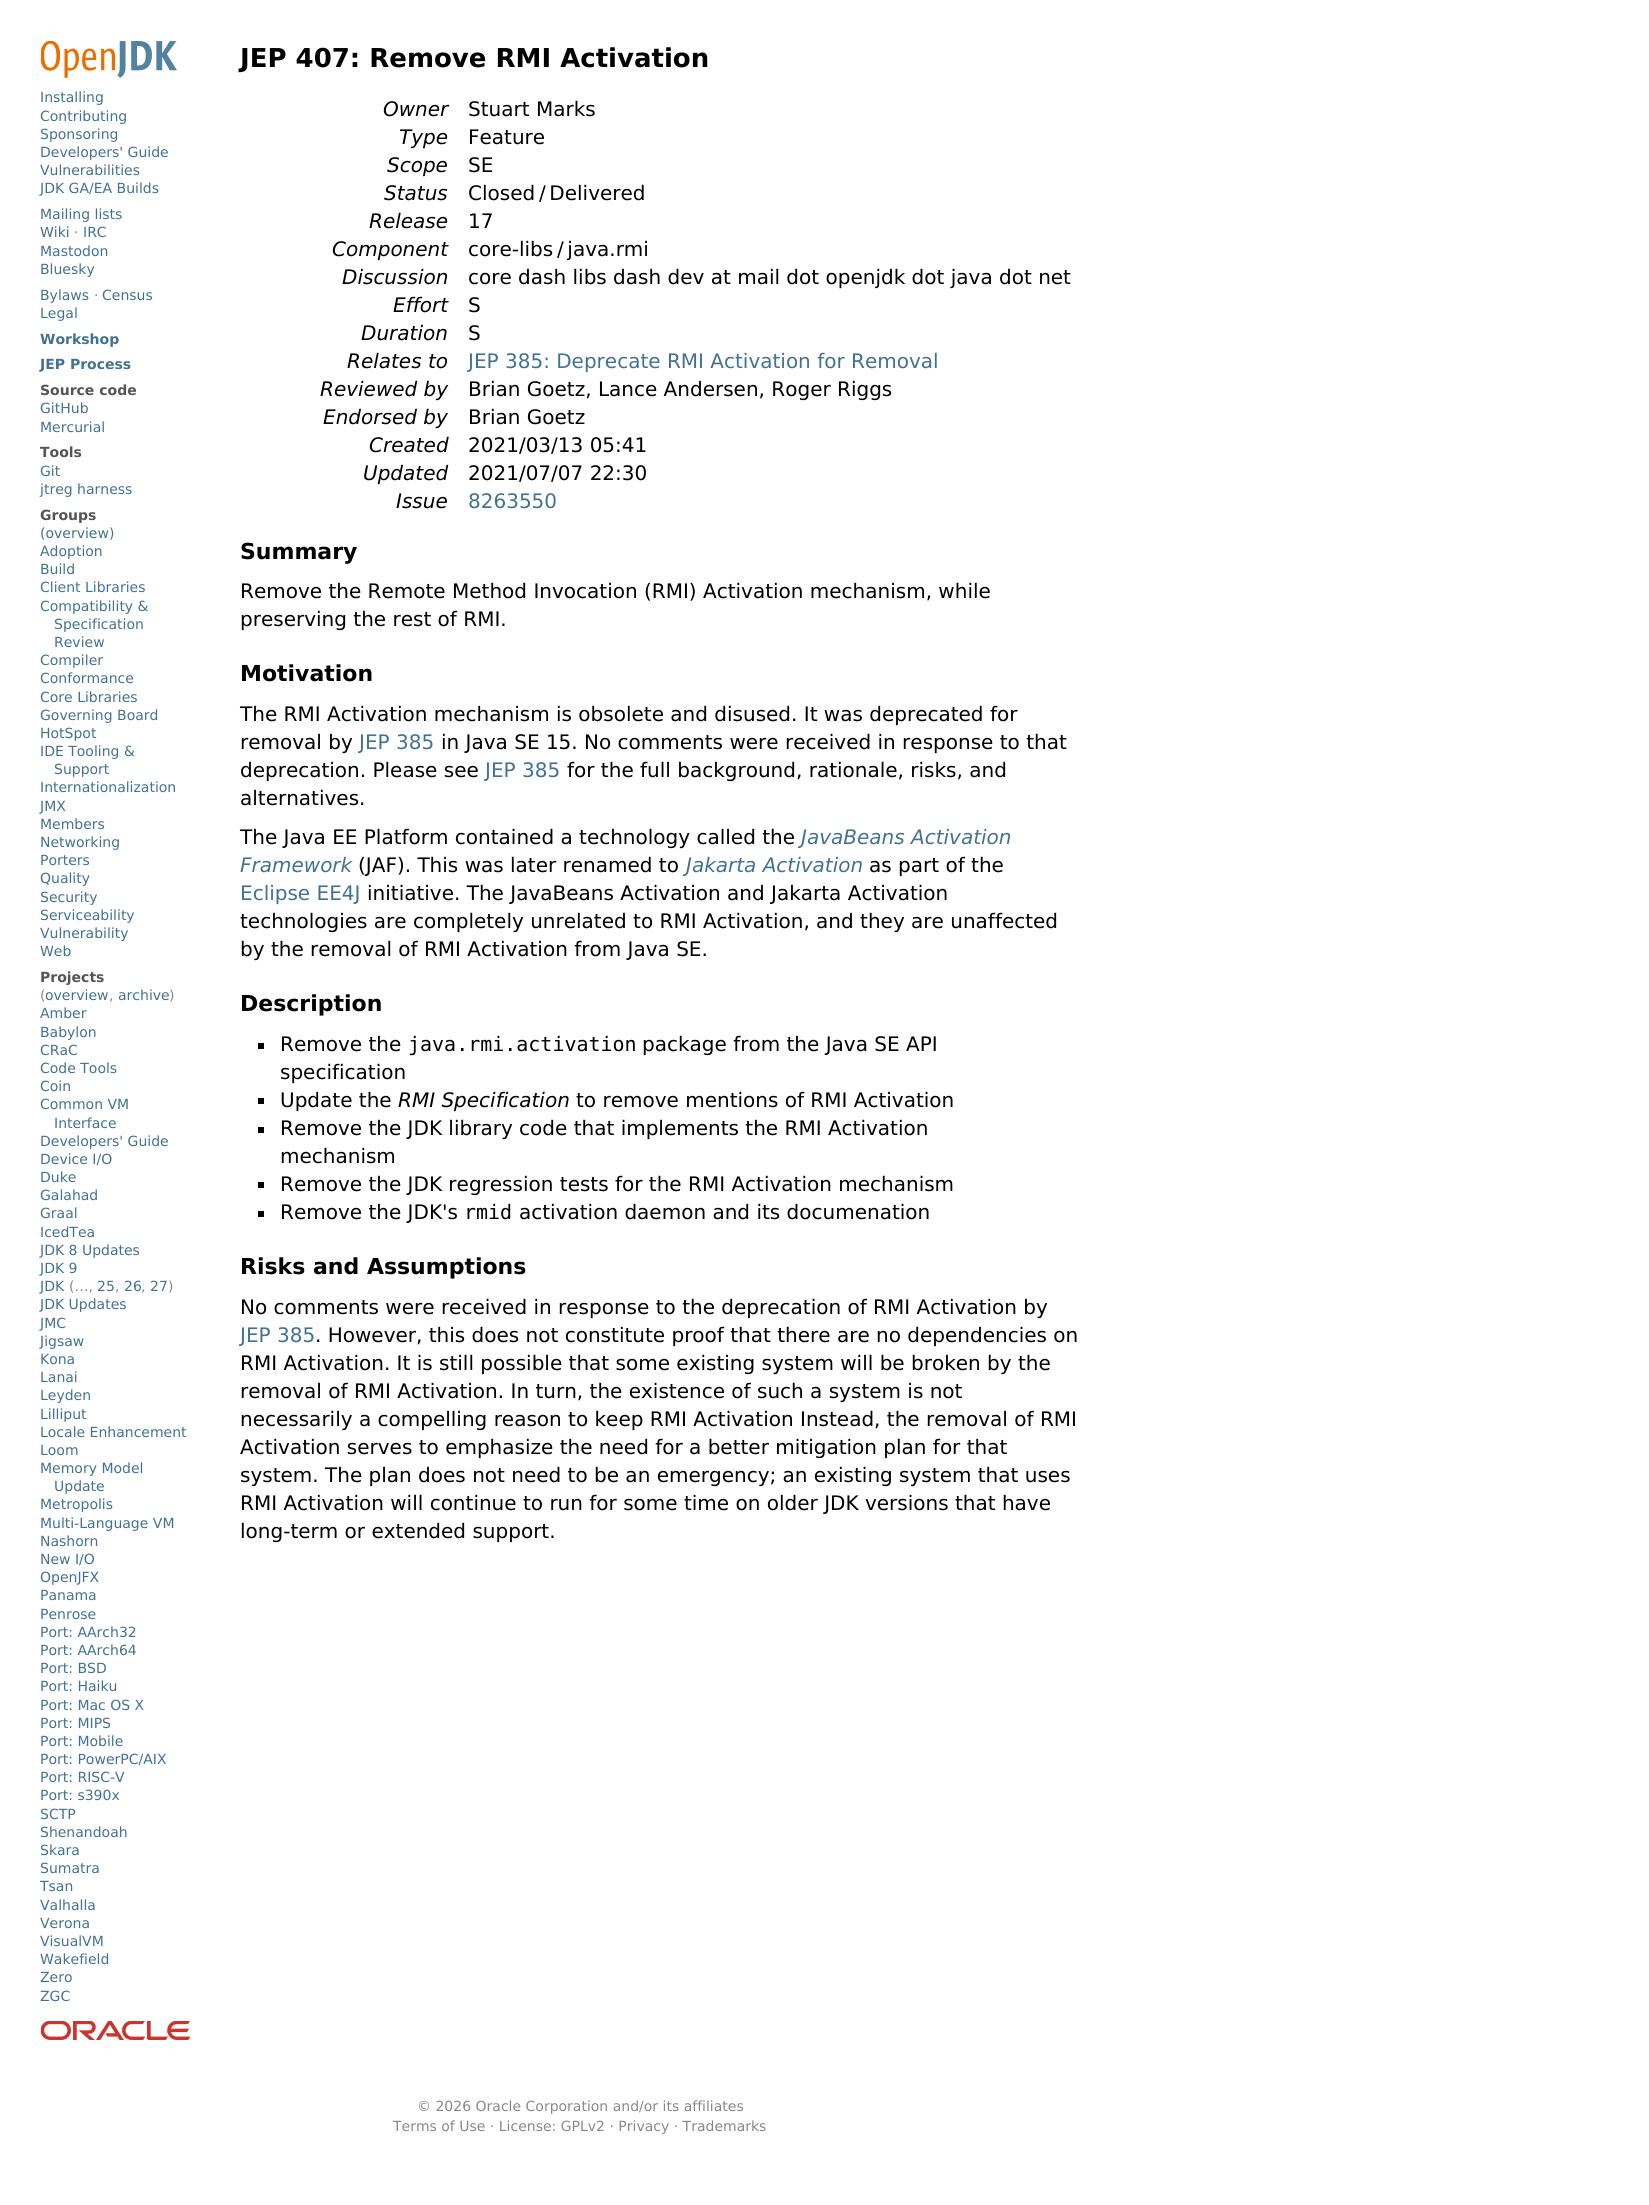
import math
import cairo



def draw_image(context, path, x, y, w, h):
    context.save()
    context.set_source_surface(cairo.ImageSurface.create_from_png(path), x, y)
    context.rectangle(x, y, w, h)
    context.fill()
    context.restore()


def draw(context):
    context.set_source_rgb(1, 1, 1)
    context.paint()
    draw_image(context, "images/1.png", 41, 41, 136, 37)
    draw_image(context, "images/2.png", 41, 2021, 150, 19)
    context.set_source_rgb(0, 0, 0)
    context.rectangle(258, 1043, 6, 6)
    context.fill()
    context.rectangle(258, 1098, 6, 6)
    context.fill()
    context.rectangle(258, 1127, 6, 6)
    context.fill()
    context.rectangle(258, 1182, 6, 6)
    context.fill()
    context.rectangle(258, 1211, 6, 6)
    context.fill()
    context.select_font_face("DejaVu Sans")
    context.set_font_size(14)
    context.set_source_rgb(67 / 255, 114 / 255, 145 / 255)
    context.move_to(40, 102)
    context.show_text("Installing")
    context.move_to(40, 121)
    context.show_text("Contributing")
    context.move_to(40, 139)
    context.show_text("Sponsoring")
    context.move_to(40, 157)
    context.show_text("Developers' Guide")
    context.move_to(40, 175)
    context.show_text("Vulnerabilities")
    context.move_to(40, 193)
    context.show_text("JDK GA/EA Builds")
    context.move_to(40, 219)
    context.show_text("Mailing lists")
    context.move_to(40, 237)
    context.show_text("Wiki")
    context.set_source_rgb(136 / 255, 136 / 255, 136 / 255)
    context.move_to(74, 237)
    context.show_text("·")
    context.set_source_rgb(67 / 255, 114 / 255, 145 / 255)
    context.move_to(83, 237)
    context.show_text("IRC")
    context.move_to(40, 256)
    context.show_text("Mastodon")
    context.move_to(40, 274)
    context.show_text("Bluesky")
    context.move_to(40, 300)
    context.show_text("Bylaws")
    context.set_source_rgb(136 / 255, 136 / 255, 136 / 255)
    context.move_to(94, 300)
    context.show_text("·")
    context.set_source_rgb(67 / 255, 114 / 255, 145 / 255)
    context.move_to(102, 300)
    context.show_text("Census")
    context.move_to(40, 318)
    context.show_text("Legal")
    context.select_font_face("DejaVu Sans", cairo.FontSlant.NORMAL, cairo.FontWeight.BOLD)
    context.move_to(40, 344)
    context.show_text("Workshop")
    context.move_to(40, 369)
    context.show_text("JEP Process")
    context.set_source_rgb(85 / 255, 85 / 255, 85 / 255)
    context.move_to(40, 395)
    context.show_text("Source code")
    context.select_font_face("DejaVu Sans")
    context.set_source_rgb(67 / 255, 114 / 255, 145 / 255)
    context.move_to(40, 413)
    context.show_text("GitHub")
    context.move_to(40, 432)
    context.show_text("Mercurial")
    context.select_font_face("DejaVu Sans", cairo.FontSlant.NORMAL, cairo.FontWeight.BOLD)
    context.set_source_rgb(85 / 255, 85 / 255, 85 / 255)
    context.move_to(40, 457)
    context.show_text("Tools")
    context.select_font_face("DejaVu Sans")
    context.set_source_rgb(67 / 255, 114 / 255, 145 / 255)
    context.move_to(40, 476)
    context.show_text("Git")
    context.move_to(40, 494)
    context.show_text("jtreg harness")
    context.select_font_face("DejaVu Sans", cairo.FontSlant.NORMAL, cairo.FontWeight.BOLD)
    context.set_source_rgb(85 / 255, 85 / 255, 85 / 255)
    context.move_to(40, 520)
    context.show_text("Groups")
    context.select_font_face("DejaVu Sans")
    context.set_source_rgb(67 / 255, 114 / 255, 145 / 255)
    context.move_to(40, 538)
    context.show_text("(overview)")
    context.move_to(40, 556)
    context.show_text("Adoption")
    context.move_to(40, 574)
    context.show_text("Build")
    context.move_to(40, 592)
    context.show_text("Client Libraries")
    context.move_to(40, 611)
    context.show_text("Compatibility &")
    context.move_to(54, 629)
    context.show_text("Specification")
    context.move_to(54, 647)
    context.show_text("Review")
    context.move_to(40, 665)
    context.show_text("Compiler")
    context.move_to(40, 683)
    context.show_text("Conformance")
    context.move_to(40, 702)
    context.show_text("Core Libraries")
    context.move_to(40, 720)
    context.show_text("Governing Board")
    context.move_to(40, 738)
    context.show_text("HotSpot")
    context.move_to(40, 756)
    context.show_text("IDE Tooling &")
    context.move_to(54, 774)
    context.show_text("Support")
    context.move_to(40, 792)
    context.show_text("Internationalization")
    context.move_to(40, 811)
    context.show_text("JMX")
    context.move_to(40, 829)
    context.show_text("Members")
    context.move_to(40, 847)
    context.show_text("Networking")
    context.move_to(40, 865)
    context.show_text("Porters")
    context.move_to(40, 883)
    context.show_text("Quality")
    context.move_to(40, 902)
    context.show_text("Security")
    context.move_to(40, 920)
    context.show_text("Serviceability")
    context.move_to(40, 938)
    context.show_text("Vulnerability")
    context.move_to(40, 956)
    context.show_text("Web")
    context.select_font_face("DejaVu Sans", cairo.FontSlant.NORMAL, cairo.FontWeight.BOLD)
    context.set_source_rgb(85 / 255, 85 / 255, 85 / 255)
    context.move_to(40, 982)
    context.show_text("Projects")
    context.select_font_face("DejaVu Sans")
    context.set_source_rgb(136 / 255, 136 / 255, 136 / 255)
    context.move_to(40, 1000)
    context.show_text("(")
    context.set_source_rgb(67 / 255, 114 / 255, 145 / 255)
    context.move_to(45, 1000)
    context.show_text("overview")
    context.set_source_rgb(136 / 255, 136 / 255, 136 / 255)
    context.move_to(109, 1000)
    context.show_text(",")
    context.set_source_rgb(67 / 255, 114 / 255, 145 / 255)
    context.move_to(118, 1000)
    context.show_text("archive")
    context.set_source_rgb(136 / 255, 136 / 255, 136 / 255)
    context.move_to(169, 1000)
    context.show_text(")")
    context.set_source_rgb(67 / 255, 114 / 255, 145 / 255)
    context.move_to(40, 1018)
    context.show_text("Amber")
    context.move_to(40, 1037)
    context.show_text("Babylon")
    context.move_to(40, 1055)
    context.show_text("CRaC")
    context.move_to(40, 1073)
    context.show_text("Code Tools")
    context.move_to(40, 1091)
    context.show_text("Coin")
    context.move_to(40, 1109)
    context.show_text("Common VM")
    context.move_to(54, 1128)
    context.show_text("Interface")
    context.move_to(40, 1146)
    context.show_text("Developers' Guide")
    context.move_to(40, 1164)
    context.show_text("Device I/O")
    context.move_to(40, 1182)
    context.show_text("Duke")
    context.move_to(40, 1200)
    context.show_text("Galahad")
    context.move_to(40, 1218)
    context.show_text("Graal")
    context.move_to(40, 1237)
    context.show_text("IcedTea")
    context.move_to(40, 1255)
    context.show_text("JDK 8 Updates")
    context.move_to(40, 1273)
    context.show_text("JDK 9")
    context.move_to(40, 1291)
    context.show_text("JDK")
    context.set_source_rgb(136 / 255, 136 / 255, 136 / 255)
    context.move_to(69, 1291)
    context.show_text("(…,")
    context.set_source_rgb(67 / 255, 114 / 255, 145 / 255)
    context.move_to(97, 1291)
    context.show_text("25")
    context.set_source_rgb(136 / 255, 136 / 255, 136 / 255)
    context.move_to(115, 1291)
    context.show_text(",")
    context.set_source_rgb(67 / 255, 114 / 255, 145 / 255)
    context.move_to(124, 1291)
    context.show_text("26")
    context.set_source_rgb(136 / 255, 136 / 255, 136 / 255)
    context.move_to(141, 1291)
    context.show_text(",")
    context.set_source_rgb(67 / 255, 114 / 255, 145 / 255)
    context.move_to(150, 1291)
    context.show_text("27")
    context.set_source_rgb(136 / 255, 136 / 255, 136 / 255)
    context.move_to(168, 1291)
    context.show_text(")")
    context.set_source_rgb(67 / 255, 114 / 255, 145 / 255)
    context.move_to(40, 1309)
    context.show_text("JDK Updates")
    context.move_to(40, 1328)
    context.show_text("JMC")
    context.move_to(40, 1346)
    context.show_text("Jigsaw")
    context.move_to(40, 1364)
    context.show_text("Kona")
    context.move_to(40, 1382)
    context.show_text("Lanai")
    context.move_to(40, 1400)
    context.show_text("Leyden")
    context.move_to(40, 1419)
    context.show_text("Lilliput")
    context.move_to(40, 1437)
    context.show_text("Locale Enhancement")
    context.move_to(40, 1455)
    context.show_text("Loom")
    context.move_to(40, 1473)
    context.show_text("Memory Model")
    context.move_to(54, 1491)
    context.show_text("Update")
    context.move_to(40, 1509)
    context.show_text("Metropolis")
    context.move_to(40, 1528)
    context.show_text("Multi-Language VM")
    context.move_to(40, 1546)
    context.show_text("Nashorn")
    context.move_to(40, 1564)
    context.show_text("New I/O")
    context.move_to(40, 1582)
    context.show_text("OpenJFX")
    context.move_to(40, 1600)
    context.show_text("Panama")
    context.move_to(40, 1619)
    context.show_text("Penrose")
    context.move_to(40, 1637)
    context.show_text("Port: AArch32")
    context.move_to(40, 1655)
    context.show_text("Port: AArch64")
    context.move_to(40, 1673)
    context.show_text("Port: BSD")
    context.move_to(40, 1691)
    context.show_text("Port: Haiku")
    context.move_to(40, 1710)
    context.show_text("Port: Mac OS X")
    context.move_to(40, 1728)
    context.show_text("Port: MIPS")
    context.move_to(40, 1746)
    context.show_text("Port: Mobile")
    context.move_to(40, 1764)
    context.show_text("Port: PowerPC/AIX")
    context.move_to(40, 1782)
    context.show_text("Port: RISC-V")
    context.move_to(40, 1800)
    context.show_text("Port: s390x")
    context.move_to(40, 1819)
    context.show_text("SCTP")
    context.move_to(40, 1837)
    context.show_text("Shenandoah")
    context.move_to(40, 1855)
    context.show_text("Skara")
    context.move_to(40, 1873)
    context.show_text("Sumatra")
    context.move_to(40, 1891)
    context.show_text("Tsan")
    context.move_to(40, 1910)
    context.show_text("Valhalla")
    context.move_to(40, 1928)
    context.show_text("Verona")
    context.move_to(40, 1946)
    context.show_text("VisualVM")
    context.move_to(40, 1964)
    context.show_text("Wakefield")
    context.move_to(40, 1982)
    context.show_text("Zero")
    context.move_to(40, 2001)
    context.show_text("ZGC")
    context.select_font_face("DejaVu Sans", cairo.FontSlant.NORMAL, cairo.FontWeight.BOLD)
    context.set_font_size(26)
    context.set_source_rgb(0, 0, 0)
    context.move_to(240, 67)
    context.show_text("JEP 407: Remove RMI Activation")
    context.select_font_face("DejaVu Sans", cairo.FontSlant.ITALIC)
    context.set_font_size(20)
    context.move_to(383, 116)
    context.show_text("Owner")
    context.select_font_face("DejaVu Sans")
    context.move_to(468, 116)
    context.show_text("Stuart Marks")
    context.select_font_face("DejaVu Sans", cairo.FontSlant.ITALIC)
    context.move_to(399, 144)
    context.show_text("Type")
    context.select_font_face("DejaVu Sans")
    context.move_to(468, 144)
    context.show_text("Feature")
    context.select_font_face("DejaVu Sans", cairo.FontSlant.ITALIC)
    context.move_to(387, 172)
    context.show_text("Scope")
    context.select_font_face("DejaVu Sans")
    context.move_to(468, 172)
    context.show_text("SE")
    context.select_font_face("DejaVu Sans", cairo.FontSlant.ITALIC)
    context.move_to(384, 200)
    context.show_text("Status")
    context.select_font_face("DejaVu Sans")
    context.move_to(468, 200)
    context.show_text("Closed / Delivered")
    context.select_font_face("DejaVu Sans", cairo.FontSlant.ITALIC)
    context.move_to(369, 228)
    context.show_text("Release")
    context.select_font_face("DejaVu Sans")
    context.move_to(468, 228)
    context.show_text("17")
    context.select_font_face("DejaVu Sans", cairo.FontSlant.ITALIC)
    context.move_to(332, 256)
    context.show_text("Component")
    context.select_font_face("DejaVu Sans")
    context.move_to(468, 256)
    context.show_text("core-libs / java.rmi")
    context.select_font_face("DejaVu Sans", cairo.FontSlant.ITALIC)
    context.move_to(342, 284)
    context.show_text("Discussion")
    context.select_font_face("DejaVu Sans")
    context.move_to(468, 284)
    context.show_text("core dash libs dash dev at mail dot openjdk dot java dot net")
    context.select_font_face("DejaVu Sans", cairo.FontSlant.ITALIC)
    context.move_to(393, 312)
    context.show_text("Effort")
    context.select_font_face("DejaVu Sans")
    context.move_to(468, 312)
    context.show_text("S")
    context.select_font_face("DejaVu Sans", cairo.FontSlant.ITALIC)
    context.move_to(361, 340)
    context.show_text("Duration")
    context.select_font_face("DejaVu Sans")
    context.move_to(468, 340)
    context.show_text("S")
    context.select_font_face("DejaVu Sans", cairo.FontSlant.ITALIC)
    context.move_to(347, 368)
    context.show_text("Relates to")
    context.select_font_face("DejaVu Sans")
    context.set_source_rgb(67 / 255, 114 / 255, 145 / 255)
    context.move_to(468, 368)
    context.show_text("JEP 385: Deprecate RMI Activation for Removal")
    context.select_font_face("DejaVu Sans", cairo.FontSlant.ITALIC)
    context.set_source_rgb(0, 0, 0)
    context.move_to(320, 396)
    context.show_text("Reviewed by")
    context.select_font_face("DejaVu Sans")
    context.move_to(468, 396)
    context.show_text("Brian Goetz, Lance Andersen, Roger Riggs")
    context.select_font_face("DejaVu Sans", cairo.FontSlant.ITALIC)
    context.move_to(323, 424)
    context.show_text("Endorsed by")
    context.select_font_face("DejaVu Sans")
    context.move_to(468, 424)
    context.show_text("Brian Goetz")
    context.select_font_face("DejaVu Sans", cairo.FontSlant.ITALIC)
    context.move_to(369, 452)
    context.show_text("Created")
    context.select_font_face("DejaVu Sans")
    context.move_to(468, 452)
    context.show_text("2021/03/13 05:41")
    context.select_font_face("DejaVu Sans", cairo.FontSlant.ITALIC)
    context.move_to(363, 480)
    context.show_text("Updated")
    context.select_font_face("DejaVu Sans")
    context.move_to(468, 480)
    context.show_text("2021/07/07 22:30")
    context.select_font_face("DejaVu Sans", cairo.FontSlant.ITALIC)
    context.move_to(396, 508)
    context.show_text("Issue")
    context.select_font_face("DejaVu Sans")
    context.set_source_rgb(67 / 255, 114 / 255, 145 / 255)
    context.move_to(468, 508)
    context.show_text("8263550")
    context.select_font_face("DejaVu Sans", cairo.FontSlant.NORMAL, cairo.FontWeight.BOLD)
    context.set_font_size(22)
    context.set_source_rgb(0, 0, 0)
    context.move_to(240, 559)
    context.show_text("Summary")
    context.select_font_face("DejaVu Sans")
    context.set_font_size(20)
    context.move_to(240, 598)
    context.show_text("Remove the Remote Method Invocation (RMI) Activation mechanism, while")
    context.move_to(240, 626)
    context.show_text("preserving the rest of RMI.")
    context.select_font_face("DejaVu Sans", cairo.FontSlant.NORMAL, cairo.FontWeight.BOLD)
    context.set_font_size(22)
    context.move_to(240, 681)
    context.show_text("Motivation")
    context.select_font_face("DejaVu Sans")
    context.set_font_size(20)
    context.move_to(240, 721)
    context.show_text("The RMI Activation mechanism is obsolete and disused. It was deprecated for")
    context.move_to(240, 749)
    context.show_text("removal by")
    context.set_source_rgb(67 / 255, 114 / 255, 145 / 255)
    context.move_to(359, 749)
    context.show_text("JEP 385")
    context.set_source_rgb(0, 0, 0)
    context.move_to(441, 749)
    context.show_text("in Java SE 15. No comments were received in response to that")
    context.move_to(240, 777)
    context.show_text("deprecation. Please see")
    context.set_source_rgb(67 / 255, 114 / 255, 145 / 255)
    context.move_to(485, 777)
    context.show_text("JEP 385")
    context.set_source_rgb(0, 0, 0)
    context.move_to(567, 777)
    context.show_text("for the full background, rationale, risks, and")
    context.move_to(240, 805)
    context.show_text("alternatives.")
    context.move_to(240, 844)
    context.show_text("The Java EE Platform contained a technology called the")
    context.select_font_face("DejaVu Sans", cairo.FontSlant.ITALIC)
    context.set_source_rgb(67 / 255, 114 / 255, 145 / 255)
    context.move_to(801, 844)
    context.show_text("JavaBeans Activation")
    context.move_to(240, 872)
    context.show_text("Framework")
    context.select_font_face("DejaVu Sans")
    context.set_source_rgb(0, 0, 0)
    context.move_to(358, 872)
    context.show_text("(JAF). This was later renamed to")
    context.select_font_face("DejaVu Sans", cairo.FontSlant.ITALIC)
    context.set_source_rgb(67 / 255, 114 / 255, 145 / 255)
    context.move_to(686, 872)
    context.show_text("Jakarta Activation")
    context.select_font_face("DejaVu Sans")
    context.set_source_rgb(0, 0, 0)
    context.move_to(869, 872)
    context.show_text("as part of the")
    context.set_source_rgb(67 / 255, 114 / 255, 145 / 255)
    context.move_to(240, 900)
    context.show_text("Eclipse EE4J")
    context.set_source_rgb(0, 0, 0)
    context.move_to(367, 900)
    context.show_text("initiative. The JavaBeans Activation and Jakarta Activation")
    context.move_to(240, 928)
    context.show_text("technologies are completely unrelated to RMI Activation, and they are unaffected")
    context.move_to(240, 956)
    context.show_text("by the removal of RMI Activation from Java SE.")
    context.select_font_face("DejaVu Sans", cairo.FontSlant.NORMAL, cairo.FontWeight.BOLD)
    context.set_font_size(22)
    context.move_to(240, 1011)
    context.show_text("Description")
    context.select_font_face("DejaVu Sans")
    context.set_font_size(20)
    context.move_to(280, 1051)
    context.show_text("Remove the")
    context.select_font_face("DejaVu Sans Mono")
    context.move_to(408, 1051)
    context.show_text("java.rmi.activation")
    context.select_font_face("DejaVu Sans")
    context.move_to(642, 1051)
    context.show_text("package from the Java SE API")
    context.move_to(280, 1079)
    context.show_text("specification")
    context.move_to(280, 1107)
    context.show_text("Update the")
    context.select_font_face("DejaVu Sans", cairo.FontSlant.ITALIC)
    context.move_to(398, 1107)
    context.show_text("RMI Specification")
    context.select_font_face("DejaVu Sans")
    context.move_to(576, 1107)
    context.show_text("to remove mentions of RMI Activation")
    context.move_to(280, 1135)
    context.show_text("Remove the JDK library code that implements the RMI Activation")
    context.move_to(280, 1163)
    context.show_text("mechanism")
    context.move_to(280, 1191)
    context.show_text("Remove the JDK regression tests for the RMI Activation mechanism")
    context.move_to(280, 1219)
    context.show_text("Remove the JDK's")
    context.select_font_face("DejaVu Sans Mono")
    context.move_to(464, 1219)
    context.show_text("rmid")
    context.select_font_face("DejaVu Sans")
    context.move_to(519, 1219)
    context.show_text("activation daemon and its documenation")
    context.select_font_face("DejaVu Sans", cairo.FontSlant.NORMAL, cairo.FontWeight.BOLD)
    context.set_font_size(22)
    context.move_to(240, 1274)
    context.show_text("Risks and Assumptions")
    context.select_font_face("DejaVu Sans")
    context.set_font_size(20)
    context.move_to(240, 1314)
    context.show_text("No comments were received in response to the deprecation of RMI Activation by")
    context.set_source_rgb(67 / 255, 114 / 255, 145 / 255)
    context.move_to(240, 1342)
    context.show_text("JEP 385")
    context.set_source_rgb(0, 0, 0)
    context.move_to(315, 1342)
    context.show_text(". However, this does not constitute proof that there are no dependencies on")
    context.move_to(240, 1370)
    context.show_text("RMI Activation. It is still possible that some existing system will be broken by the")
    context.move_to(240, 1398)
    context.show_text("removal of RMI Activation. In turn, the existence of such a system is not")
    context.move_to(240, 1426)
    context.show_text("necessarily a compelling reason to keep RMI Activation Instead, the removal of RMI")
    context.move_to(240, 1454)
    context.show_text("Activation serves to emphasize the need for a better mitigation plan for that")
    context.move_to(240, 1482)
    context.show_text("system. The plan does not need to be an emergency; an existing system that uses")
    context.move_to(240, 1510)
    context.show_text("RMI Activation will continue to run for some time on older JDK versions that have")
    context.move_to(240, 1538)
    context.show_text("long-term or extended support.")
    context.set_font_size(14)
    context.set_source_rgb(136 / 255, 136 / 255, 136 / 255)
    context.move_to(417, 2111)
    context.show_text("© 2026 Oracle Corporation and/or its affiliates")
    context.move_to(393, 2131)
    context.show_text("Terms of Use · License: GPLv2 · Privacy · Trademarks")


surface = cairo.ImageSurface(cairo.Format.RGB24, 1649, 2205)
context = cairo.Context(surface)
options = cairo.FontOptions()
options.set_hint_metrics(cairo.HintMetrics.OFF)
options.set_hint_style(cairo.HintStyle.NONE)
context.set_font_options(options)
context.set_miter_limit(4)
draw(context)
surface.write_to_png("out.png")
